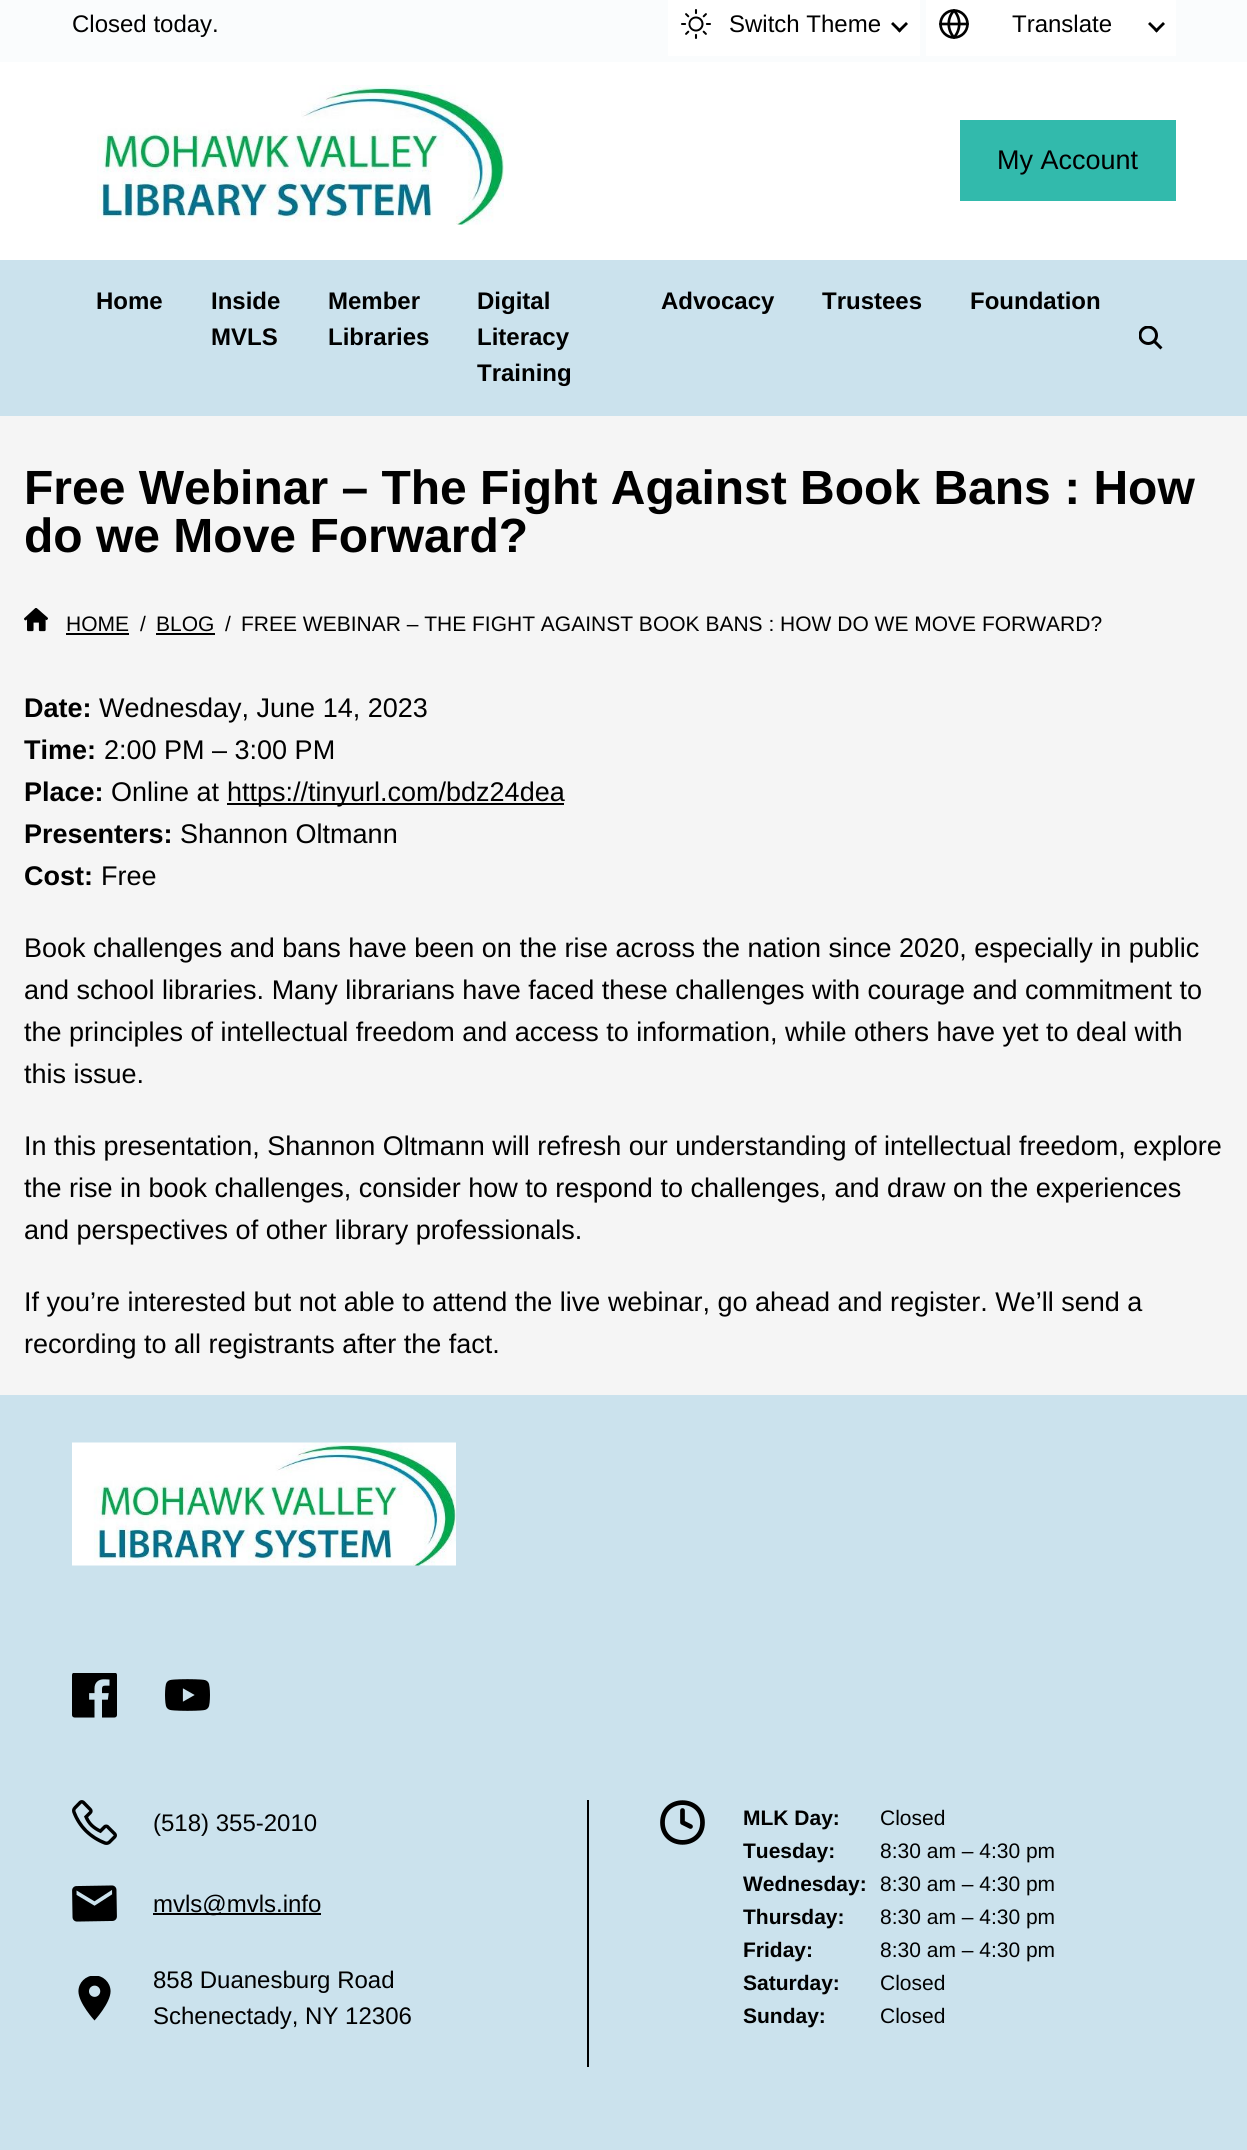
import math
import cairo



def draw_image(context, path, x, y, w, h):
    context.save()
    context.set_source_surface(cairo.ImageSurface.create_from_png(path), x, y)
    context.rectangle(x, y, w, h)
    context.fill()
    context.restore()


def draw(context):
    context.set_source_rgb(245 / 255, 245 / 255, 245 / 255)
    context.paint()
    context.set_source_rgb(1, 1, 1)
    context.rectangle(0, 62, 1247, 198)
    context.fill()
    context.set_source_rgb(250 / 255, 252 / 255, 253 / 255)
    context.rectangle(0, 0, 1247, 62)
    context.fill()
    context.set_source_rgb(1, 1, 1)
    context.rectangle(668, 0, 252, 56)
    context.fill()
    draw_image(context, "images/1.png", 681, 9, 30, 30)
    context.set_source_rgb(0, 0, 0)
    context.new_path()
    context.move_to(899.5, 32.5)
    context.line_to(891, 24)
    context.line_to(893, 22)
    context.line_to(901.5, 30.5)
    context.close_path()
    context.fill()
    context.new_path()
    context.move_to(899.5, 32.5)
    context.line_to(897.5, 30.5)
    context.line_to(906, 22)
    context.line_to(908, 24)
    context.close_path()
    context.fill()
    context.set_source_rgb(1, 1, 1)
    context.rectangle(926, 0, 250, 56)
    context.fill()
    context.arc(954, 24, 13.5, 0, 2 * math.pi)
    context.set_source_rgb(0, 0, 0)
    context.set_line_width(2.7)
    context.stroke()
    context.new_path()
    context.move_to(940.5, 24)
    context.line_to(967.5, 24)
    context.move_to(954, 10.5)
    context.curve_to(961, 18, 961, 29.5, 954, 37.5)
    context.curve_to(947, 29.5, 947, 18, 954, 10.5)
    context.close_path()
    context.set_line_cap(cairo.LineCap.ROUND)
    context.set_line_join(cairo.LineJoin.ROUND)
    context.stroke()
    context.new_path()
    context.move_to(1156.5, 32.5)
    context.line_to(1148, 24)
    context.line_to(1150, 22)
    context.line_to(1158.5, 30.5)
    context.close_path()
    context.fill()
    context.new_path()
    context.move_to(1156.5, 32.5)
    context.line_to(1154.5, 30.5)
    context.line_to(1163, 22)
    context.line_to(1165, 24)
    context.close_path()
    context.fill()
    draw_image(context, "images/2.png", 97, 85, 407, 140)
    context.set_source_rgb(50 / 255, 186 / 255, 172 / 255)
    context.rectangle(960, 120, 216, 81)
    context.fill()
    context.set_source_rgb(203 / 255, 226 / 255, 237 / 255)
    context.rectangle(0, 260, 1247, 156)
    context.fill()
    draw_image(context, "images/3.png", 1139, 326, 24, 24)
    draw_image(context, "images/4.png", 24, 608, 24, 24)
    context.set_source_rgb(0, 0, 0)
    context.rectangle(66, 633, 63, 2)
    context.fill()
    context.rectangle(156, 633, 59, 2)
    context.fill()
    context.rectangle(227, 803, 337, 2)
    context.fill()
    context.set_source_rgb(203 / 255, 226 / 255, 237 / 255)
    context.rectangle(0, 1395, 1247, 755)
    context.fill()
    draw_image(context, "images/5.png", 72, 1442, 384, 124)
    draw_image(context, "images/6.png", 72, 1673, 45, 45)
    draw_image(context, "images/7.png", 165, 1679, 45, 32)
    context.set_source_rgb(0, 0, 0)
    context.rectangle(587, 1800, 2, 267)
    context.fill()
    draw_image(context, "images/8.png", 72, 1800, 45, 45)
    draw_image(context, "images/9.png", 72, 1885, 45, 37)
    context.rectangle(153, 1913, 168, 2)
    context.fill()
    draw_image(context, "images/10.png", 78, 1976, 33, 45)
    context.new_path()
    context.move_to(702.5, 1822.5)
    context.curve_to(702.5, 1849, 662.5, 1849, 662.5, 1822.5)
    context.curve_to(662.5, 1796, 702.5, 1796, 702.5, 1822.5)
    context.close_path()
    context.move_to(682.5, 1810.5)
    context.line_to(682.5, 1822.5)
    context.line_to(690.5, 1826.5)
    context.set_line_width(4.7)
    context.stroke()
    context.select_font_face("Liberation Sans")
    context.set_font_size(24)
    context.move_to(72, 32)
    context.show_text("Closed today.")
    context.move_to(729, 32)
    context.show_text("Switch Theme")
    context.move_to(1012, 32)
    context.show_text("Translate")
    context.set_font_size(27)
    context.move_to(997, 169)
    context.show_text("My Account")
    context.select_font_face("Liberation Sans", cairo.FontSlant.NORMAL, cairo.FontWeight.BOLD)
    context.set_font_size(24)
    context.move_to(96, 309)
    context.show_text("Home")
    context.move_to(211, 309)
    context.show_text("Inside")
    context.move_to(211, 345)
    context.show_text("MVLS")
    context.move_to(328, 309)
    context.show_text("Member")
    context.move_to(328, 345)
    context.show_text("Libraries")
    context.move_to(477, 309)
    context.show_text("Digital")
    context.move_to(477, 345)
    context.show_text("Literacy")
    context.move_to(477, 381)
    context.show_text("Training")
    context.move_to(661, 309)
    context.show_text("Advocacy")
    context.move_to(822, 309)
    context.show_text("Trustees")
    context.move_to(970, 309)
    context.show_text("Foundation")
    context.set_font_size(48)
    context.move_to(24, 504)
    context.show_text("Free Webinar – The Fight Against Book Bans : How")
    context.move_to(24, 552)
    context.show_text("do we Move Forward?")
    context.select_font_face("Liberation Sans")
    context.set_font_size(21)
    context.move_to(66, 631)
    context.show_text("HOME")
    context.move_to(140, 631)
    context.show_text("/")
    context.move_to(156, 631)
    context.show_text("BLOG")
    context.move_to(225, 631)
    context.show_text("/")
    context.move_to(241, 631)
    context.show_text("FREE WEBINAR – THE FIGHT AGAINST BOOK BANS : HOW DO WE MOVE FORWARD?")
    context.select_font_face("Liberation Sans", cairo.FontSlant.NORMAL, cairo.FontWeight.BOLD)
    context.set_font_size(27)
    context.move_to(24, 717)
    context.show_text("Date:")
    context.select_font_face("Liberation Sans")
    context.move_to(99, 717)
    context.show_text("Wednesday, June 14, 2023")
    context.select_font_face("Liberation Sans", cairo.FontSlant.NORMAL, cairo.FontWeight.BOLD)
    context.move_to(24, 759)
    context.show_text("Time:")
    context.select_font_face("Liberation Sans")
    context.move_to(104, 759)
    context.show_text("2:00 PM – 3:00 PM")
    context.select_font_face("Liberation Sans", cairo.FontSlant.NORMAL, cairo.FontWeight.BOLD)
    context.move_to(24, 801)
    context.show_text("Place:")
    context.select_font_face("Liberation Sans")
    context.move_to(111, 801)
    context.show_text("Online at")
    context.move_to(227, 801)
    context.show_text("https://tinyurl.com/bdz24dea")
    context.select_font_face("Liberation Sans", cairo.FontSlant.NORMAL, cairo.FontWeight.BOLD)
    context.move_to(24, 843)
    context.show_text("Presenters:")
    context.select_font_face("Liberation Sans")
    context.move_to(180, 843)
    context.show_text("Shannon Oltmann")
    context.select_font_face("Liberation Sans", cairo.FontSlant.NORMAL, cairo.FontWeight.BOLD)
    context.move_to(24, 885)
    context.show_text("Cost:")
    context.select_font_face("Liberation Sans")
    context.move_to(101, 885)
    context.show_text("Free")
    context.move_to(24, 957)
    context.show_text("Book challenges and bans have been on the rise across the nation since 2020, especially in public")
    context.move_to(24, 999)
    context.show_text("and school libraries. Many librarians have faced these challenges with courage and commitment to")
    context.move_to(24, 1041)
    context.show_text("the principles of intellectual freedom and access to information, while others have yet to deal with")
    context.move_to(24, 1083)
    context.show_text("this issue.")
    context.move_to(24, 1155)
    context.show_text("In this presentation, Shannon Oltmann will refresh our understanding of intellectual freedom, explore")
    context.move_to(24, 1197)
    context.show_text("the rise in book challenges, consider how to respond to challenges, and draw on the experiences")
    context.move_to(24, 1239)
    context.show_text("and perspectives of other library professionals.")
    context.move_to(24, 1311)
    context.show_text("If you’re interested but not able to attend the live webinar, go ahead and register. We’ll send a")
    context.move_to(24, 1353)
    context.show_text("recording to all registrants after the fact.")
    context.set_font_size(24)
    context.move_to(153, 1831)
    context.show_text("(518) 355-2010")
    context.move_to(153, 1912)
    context.show_text("mvls@mvls.info")
    context.move_to(153, 1988)
    context.show_text("858 Duanesburg Road")
    context.move_to(153, 2024)
    context.show_text("Schenectady, NY 12306")
    context.select_font_face("Liberation Sans", cairo.FontSlant.NORMAL, cairo.FontWeight.BOLD)
    context.set_font_size(21)
    context.move_to(743, 1825)
    context.show_text("MLK Day:")
    context.select_font_face("Liberation Sans")
    context.move_to(880, 1825)
    context.show_text("Closed")
    context.select_font_face("Liberation Sans", cairo.FontSlant.NORMAL, cairo.FontWeight.BOLD)
    context.move_to(743, 1858)
    context.show_text("Tuesday:")
    context.select_font_face("Liberation Sans")
    context.move_to(880, 1858)
    context.show_text("8:30 am – 4:30 pm")
    context.select_font_face("Liberation Sans", cairo.FontSlant.NORMAL, cairo.FontWeight.BOLD)
    context.move_to(743, 1891)
    context.show_text("Wednesday:")
    context.select_font_face("Liberation Sans")
    context.move_to(880, 1891)
    context.show_text("8:30 am – 4:30 pm")
    context.select_font_face("Liberation Sans", cairo.FontSlant.NORMAL, cairo.FontWeight.BOLD)
    context.move_to(743, 1924)
    context.show_text("Thursday:")
    context.select_font_face("Liberation Sans")
    context.move_to(880, 1924)
    context.show_text("8:30 am – 4:30 pm")
    context.select_font_face("Liberation Sans", cairo.FontSlant.NORMAL, cairo.FontWeight.BOLD)
    context.move_to(743, 1957)
    context.show_text("Friday:")
    context.select_font_face("Liberation Sans")
    context.move_to(880, 1957)
    context.show_text("8:30 am – 4:30 pm")
    context.select_font_face("Liberation Sans", cairo.FontSlant.NORMAL, cairo.FontWeight.BOLD)
    context.move_to(743, 1990)
    context.show_text("Saturday:")
    context.select_font_face("Liberation Sans")
    context.move_to(880, 1990)
    context.show_text("Closed")
    context.select_font_face("Liberation Sans", cairo.FontSlant.NORMAL, cairo.FontWeight.BOLD)
    context.move_to(743, 2023)
    context.show_text("Sunday:")
    context.select_font_face("Liberation Sans")
    context.move_to(880, 2023)
    context.show_text("Closed")


surface = cairo.ImageSurface(cairo.Format.RGB24, 1247, 2150)
context = cairo.Context(surface)
options = cairo.FontOptions()
options.set_hint_metrics(cairo.HintMetrics.OFF)
options.set_hint_style(cairo.HintStyle.NONE)
context.set_font_options(options)
context.set_miter_limit(4)
draw(context)
surface.write_to_png("out.png")
